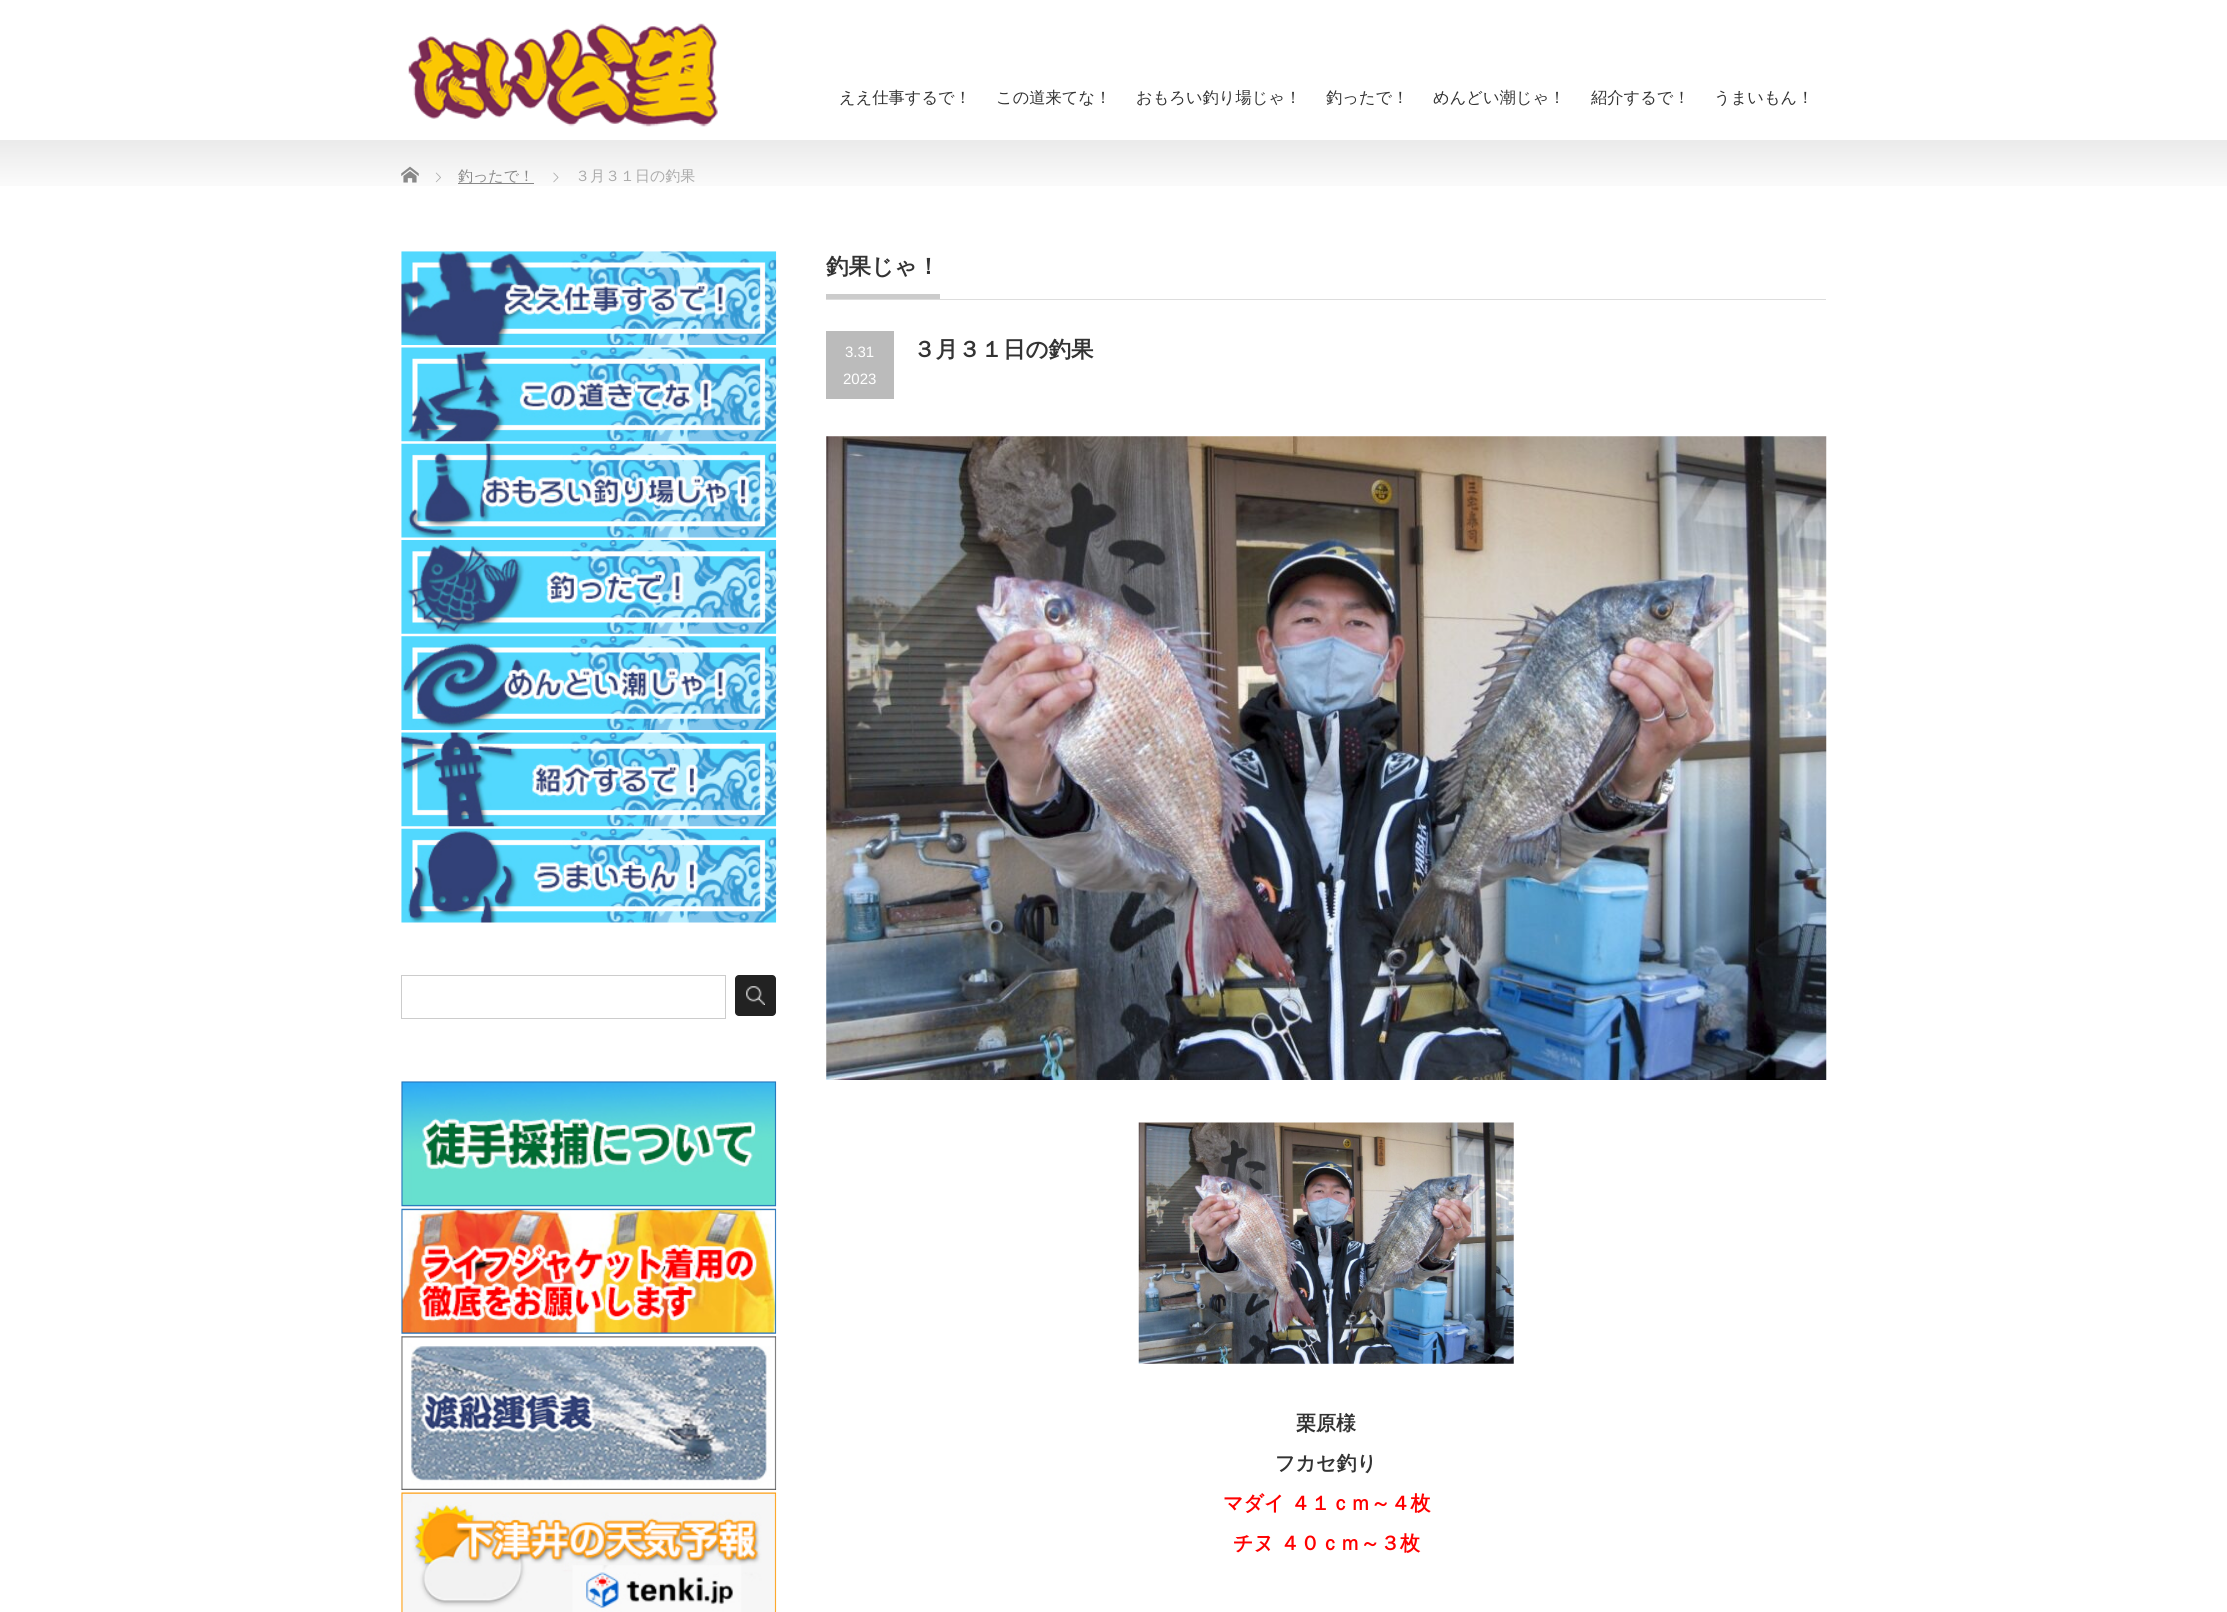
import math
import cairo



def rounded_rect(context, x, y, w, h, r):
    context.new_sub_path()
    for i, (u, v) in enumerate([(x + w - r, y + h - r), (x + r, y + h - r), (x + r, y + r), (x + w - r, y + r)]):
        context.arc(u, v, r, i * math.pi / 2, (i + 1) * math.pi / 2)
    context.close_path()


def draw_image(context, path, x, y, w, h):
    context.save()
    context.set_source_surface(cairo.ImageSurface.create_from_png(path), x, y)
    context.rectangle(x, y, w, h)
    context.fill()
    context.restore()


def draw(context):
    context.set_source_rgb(1, 1, 1)
    context.paint()
    draw_image(context, "images/1.png", 408, 23, 310, 104)
    draw_image(context, "images/2.png", 0, 140, 2227, 46)
    draw_image(context, "images/3.png", 401, 166, 18, 17)
    draw_image(context, "images/4.png", 435, 172, 6, 11)
    context.set_source_rgb(136 / 255, 136 / 255, 136 / 255)
    context.rectangle(458, 183, 76, 1)
    context.fill()
    draw_image(context, "images/5.png", 553, 172, 6, 11)
    draw_image(context, "images/6.png", 401, 251, 376, 94)
    draw_image(context, "images/7.png", 401, 347, 376, 95)
    draw_image(context, "images/8.png", 401, 443, 376, 95)
    draw_image(context, "images/9.png", 401, 540, 376, 94)
    draw_image(context, "images/10.png", 401, 636, 376, 94)
    draw_image(context, "images/11.png", 401, 732, 376, 95)
    draw_image(context, "images/12.png", 401, 828, 376, 95)
    context.rectangle(401.5, 975.5, 324, 43)
    context.set_source_rgb(204 / 255, 204 / 255, 204 / 255)
    context.set_line_width(1)
    context.stroke()
    context.set_source_rgb(34 / 255, 34 / 255, 34 / 255)
    rounded_rect(context, 735, 975, 41, 41, 4)
    context.fill()
    draw_image(context, "images/13.png", 746, 986, 19, 19)
    draw_image(context, "images/14.png", 401, 1081, 376, 126)
    draw_image(context, "images/15.png", 401, 1208, 376, 126)
    draw_image(context, "images/16.png", 401, 1336, 376, 154)
    draw_image(context, "images/17.png", 401, 1492, 376, 120)
    context.set_source_rgb(221 / 255, 221 / 255, 221 / 255)
    context.rectangle(826, 299, 1000, 1)
    context.fill()
    context.set_source_rgb(204 / 255, 204 / 255, 204 / 255)
    context.rectangle(826, 294, 114, 5)
    context.fill()
    context.set_source_rgb(187 / 255, 187 / 255, 187 / 255)
    context.rectangle(826, 331, 68, 68)
    context.fill()
    draw_image(context, "images/18.png", 826, 436, 1001, 644)
    draw_image(context, "images/19.png", 1138, 1122, 376, 242)
    context.select_font_face("WenQuanYi Zen Hei Medium")
    context.set_font_size(16.25)
    context.set_source_rgb(51 / 255, 51 / 255, 51 / 255)
    context.move_to(839, 103)
    context.show_text("ええ仕事するで！")
    context.move_to(996, 103)
    context.show_text("この道来てな！")
    context.move_to(1136, 103)
    context.show_text("おもろい釣り場じゃ！")
    context.move_to(1326, 103)
    context.show_text("釣ったで！")
    context.move_to(1433, 103)
    context.show_text("めんどい潮じゃ！")
    context.move_to(1591, 103)
    context.show_text("紹介するで！")
    context.move_to(1714, 103)
    context.show_text("うまいもん！")
    context.set_font_size(15)
    context.set_source_rgb(136 / 255, 136 / 255, 136 / 255)
    context.move_to(458, 181)
    context.show_text("釣ったで！")
    context.set_source_rgb(170 / 255, 170 / 255, 170 / 255)
    context.move_to(575, 181)
    context.show_text("３月３１日の釣果")
    context.select_font_face("WenQuanYi Zen Hei", cairo.FontSlant.NORMAL, cairo.FontWeight.BOLD)
    context.set_font_size(22.5)
    context.set_source_rgb(51 / 255, 51 / 255, 51 / 255)
    context.move_to(826, 274)
    context.show_text("釣果じゃ！")
    context.select_font_face("Liberation Sans")
    context.set_font_size(15)
    context.set_source_rgb(1, 1, 1)
    context.move_to(845, 357)
    context.show_text("3.31")
    context.move_to(843, 384)
    context.show_text("2023")
    context.select_font_face("WenQuanYi Zen Hei", cairo.FontSlant.NORMAL, cairo.FontWeight.BOLD)
    context.set_font_size(22.5)
    context.set_source_rgb(51 / 255, 51 / 255, 51 / 255)
    context.move_to(913, 357)
    context.show_text("３月３１日の釣果")
    context.set_font_size(20)
    context.move_to(1296, 1430)
    context.show_text("栗原様")
    context.move_to(1275, 1470)
    context.show_text("フカセ釣り")
    context.set_source_rgb(1, 0, 0)
    context.move_to(1223, 1510)
    context.show_text("マダイ ４１ｃｍ～４枚")
    context.move_to(1233, 1550)
    context.show_text("チヌ ４０ｃｍ～３枚")


surface = cairo.ImageSurface(cairo.Format.RGB24, 2227, 1612)
context = cairo.Context(surface)
options = cairo.FontOptions()
options.set_hint_metrics(cairo.HintMetrics.OFF)
options.set_hint_style(cairo.HintStyle.NONE)
context.set_font_options(options)
context.set_miter_limit(4)
draw(context)
surface.write_to_png("out.png")
